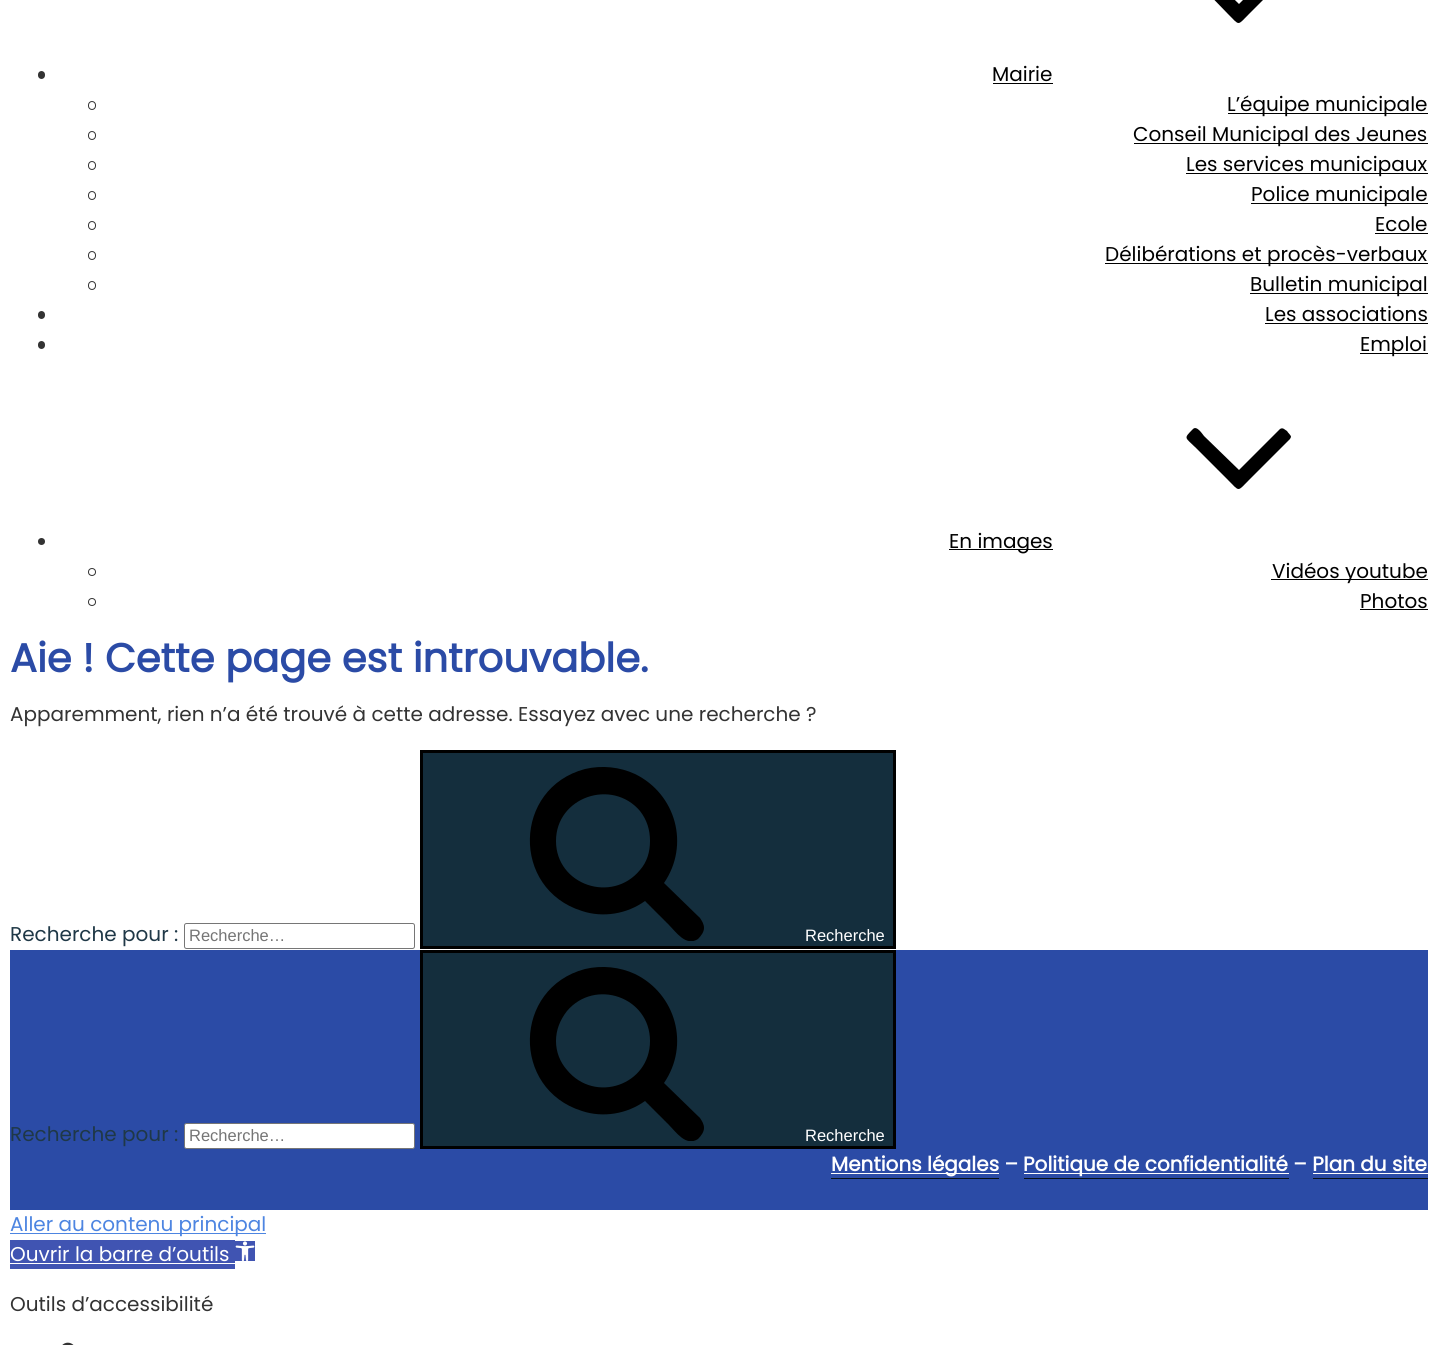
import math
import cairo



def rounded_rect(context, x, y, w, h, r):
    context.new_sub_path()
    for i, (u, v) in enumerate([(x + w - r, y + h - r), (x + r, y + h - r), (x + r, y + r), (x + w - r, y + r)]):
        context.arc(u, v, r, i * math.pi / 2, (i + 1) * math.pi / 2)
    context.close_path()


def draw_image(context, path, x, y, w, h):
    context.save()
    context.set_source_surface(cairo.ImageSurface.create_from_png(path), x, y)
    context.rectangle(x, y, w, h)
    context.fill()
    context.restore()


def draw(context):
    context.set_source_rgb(1, 1, 1)
    context.paint()
    context.set_source_rgb(51 / 255, 51 / 255, 51 / 255)
    rounded_rect(context, 38, 71, 7, 8, 3.5)
    context.fill()
    context.set_source_rgb(0, 0, 0)
    context.rectangle(993, 83, 60, 1)
    context.fill()
    context.new_path()
    context.move_to(1291, -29)
    context.line_to(1290, -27)
    context.line_to(1249, 14)
    context.curve_to(1237, 26, 1240, 26, 1228, 14)
    context.line_to(1196, -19)
    context.curve_to(1185, -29, 1183, -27, 1193, -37)
    context.curve_to(1197, -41, 1203, -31, 1204, -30)
    context.line_to(1239, 4)
    context.line_to(1280, -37)
    context.curve_to(1283, -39, 1285, -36, 1287, -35)
    context.curve_to(1288, -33, 1291, -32, 1291, -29)
    context.close_path()
    context.fill()
    rounded_rect(context, 88.5, 101.5, 7, 8, 3.5)
    context.set_source_rgb(51 / 255, 51 / 255, 51 / 255)
    context.set_line_width(1)
    context.stroke()
    context.set_source_rgb(0, 0, 0)
    context.rectangle(1228, 113, 200, 1)
    context.fill()
    rounded_rect(context, 88.5, 131.5, 7, 8, 3.5)
    context.set_source_rgb(51 / 255, 51 / 255, 51 / 255)
    context.stroke()
    context.set_source_rgb(0, 0, 0)
    context.rectangle(1134, 143, 294, 1)
    context.fill()
    rounded_rect(context, 88.5, 161.5, 7, 8, 3.5)
    context.set_source_rgb(51 / 255, 51 / 255, 51 / 255)
    context.stroke()
    context.set_source_rgb(0, 0, 0)
    context.rectangle(1186, 173, 242, 1)
    context.fill()
    rounded_rect(context, 88.5, 191.5, 7, 8, 3.5)
    context.set_source_rgb(51 / 255, 51 / 255, 51 / 255)
    context.stroke()
    context.set_source_rgb(0, 0, 0)
    context.rectangle(1251, 203, 177, 1)
    context.fill()
    rounded_rect(context, 88.5, 221.5, 7, 8, 3.5)
    context.set_source_rgb(51 / 255, 51 / 255, 51 / 255)
    context.stroke()
    context.set_source_rgb(0, 0, 0)
    context.rectangle(1375, 233, 53, 1)
    context.fill()
    rounded_rect(context, 88.5, 251.5, 7, 8, 3.5)
    context.set_source_rgb(51 / 255, 51 / 255, 51 / 255)
    context.stroke()
    context.set_source_rgb(0, 0, 0)
    context.rectangle(1105, 263, 323, 1)
    context.fill()
    rounded_rect(context, 88.5, 281.5, 7, 8, 3.5)
    context.set_source_rgb(51 / 255, 51 / 255, 51 / 255)
    context.stroke()
    context.set_source_rgb(0, 0, 0)
    context.rectangle(1250, 293, 178, 1)
    context.fill()
    context.set_source_rgb(51 / 255, 51 / 255, 51 / 255)
    rounded_rect(context, 38, 311, 7, 8, 3.5)
    context.fill()
    context.set_source_rgb(0, 0, 0)
    context.rectangle(1265, 323, 163, 1)
    context.fill()
    context.set_source_rgb(51 / 255, 51 / 255, 51 / 255)
    rounded_rect(context, 38, 341, 7, 8, 3.5)
    context.fill()
    context.set_source_rgb(0, 0, 0)
    context.rectangle(1360, 353, 68, 1)
    context.fill()
    context.set_source_rgb(51 / 255, 51 / 255, 51 / 255)
    context.arc(41.5, 541.5, 3.5, 0, 2 * math.pi)
    context.fill()
    context.set_source_rgb(0, 0, 0)
    context.rectangle(949, 549, 104, 1)
    context.fill()
    context.new_path()
    context.move_to(1291, 437)
    context.line_to(1290, 439)
    context.line_to(1249, 480)
    context.curve_to(1237, 492, 1240, 492, 1228, 480)
    context.line_to(1196, 448)
    context.curve_to(1185, 437, 1183, 439, 1193, 429)
    context.curve_to(1197, 425, 1203, 435, 1204, 436)
    context.line_to(1239, 470)
    context.line_to(1280, 429)
    context.curve_to(1283, 427, 1285, 430, 1287, 431)
    context.curve_to(1288, 433, 1291, 435, 1291, 437)
    context.close_path()
    context.fill()
    context.arc(92, 572, 3.5, 0, 2 * math.pi)
    context.set_source_rgb(51 / 255, 51 / 255, 51 / 255)
    context.stroke()
    context.set_source_rgb(0, 0, 0)
    context.rectangle(1271, 579, 157, 1)
    context.fill()
    context.arc(92, 602, 3.5, 0, 2 * math.pi)
    context.set_source_rgb(51 / 255, 51 / 255, 51 / 255)
    context.stroke()
    context.set_source_rgb(0, 0, 0)
    context.rectangle(1360, 609, 68, 1)
    context.fill()
    rounded_rect(context, 184.5, 923.5, 230, 25, 2)
    context.set_source_rgb(118 / 255, 118 / 255, 118 / 255)
    context.stroke()
    context.set_source_rgb(20 / 255, 46 / 255, 61 / 255)
    context.rectangle(421.5, 751.5, 473, 196)
    context.fill_preserve()
    context.set_source_rgb(0, 0, 0)
    context.set_line_width(3)
    context.stroke()
    context.save()
    context.rectangle(430, 754, 375, 187)
    context.clip()
    context.new_path()
    context.move_to(650, 841)
    context.curve_to(650, 830, 647, 820, 640, 811)
    context.curve_to(612, 778, 556, 797, 556, 841)
    context.curve_to(556, 885, 612, 904, 640, 870)
    context.curve_to(647, 862, 650, 852, 650, 841)
    context.close_path()
    context.move_to(704, 928)
    context.curve_to(704, 932, 701, 936, 698, 939)
    context.curve_to(686, 947, 676, 932, 669, 925)
    context.line_to(645, 901)
    context.curve_to(627, 914, 603, 918, 582, 911)
    context.curve_to(511, 889, 513, 788, 585, 769)
    context.curve_to(602, 765, 620, 767, 635, 774)
    context.curve_to(676, 794, 690, 845, 664, 883)
    context.line_to(700, 918)
    context.curve_to(702, 921, 704, 924, 704, 928)
    context.close_path()
    context.fill()
    context.restore()
    context.set_source_rgb(43 / 255, 75 / 255, 166 / 255)
    context.rectangle(10, 950, 1418, 260)
    context.fill()
    context.set_source_rgb(1, 1, 1)
    rounded_rect(context, 184.5, 1123.5, 230, 25, 2)
    context.fill_preserve()
    context.set_source_rgb(118 / 255, 118 / 255, 118 / 255)
    context.set_line_width(1)
    context.stroke()
    context.set_source_rgb(20 / 255, 46 / 255, 61 / 255)
    context.rectangle(421.5, 951.5, 473, 196)
    context.fill_preserve()
    context.set_source_rgb(0, 0, 0)
    context.set_line_width(3)
    context.stroke()
    context.save()
    context.rectangle(430, 954, 375, 187)
    context.clip()
    context.new_path()
    context.move_to(650, 1041)
    context.curve_to(650, 997, 595, 978, 567, 1011)
    context.curve_to(560, 1020, 556, 1030, 556, 1041)
    context.curve_to(556, 1052, 560, 1062, 567, 1070)
    context.curve_to(595, 1104, 650, 1085, 650, 1041)
    context.close_path()
    context.move_to(704, 1128)
    context.curve_to(704, 1132, 701, 1136, 698, 1139)
    context.curve_to(686, 1147, 676, 1132, 669, 1125)
    context.line_to(645, 1101)
    context.curve_to(627, 1114, 603, 1118, 582, 1111)
    context.curve_to(511, 1089, 513, 988, 585, 969)
    context.curve_to(602, 965, 620, 967, 635, 974)
    context.curve_to(676, 994, 690, 1045, 664, 1083)
    context.line_to(700, 1118)
    context.curve_to(702, 1121, 704, 1124, 704, 1128)
    context.close_path()
    context.fill()
    context.restore()
    context.set_source_rgb(8 / 255, 17 / 255, 23 / 255)
    context.rectangle(831, 1178, 168, 1)
    context.fill()
    context.set_source_rgb(1, 1, 1)
    context.rectangle(831, 1173, 168, 1)
    context.fill()
    context.set_source_rgb(8 / 255, 17 / 255, 23 / 255)
    context.rectangle(1024, 1178, 265, 1)
    context.fill()
    context.set_source_rgb(1, 1, 1)
    context.rectangle(1024, 1173, 265, 1)
    context.fill()
    context.set_source_rgb(8 / 255, 17 / 255, 23 / 255)
    context.rectangle(1313, 1178, 115, 1)
    context.fill()
    context.set_source_rgb(1, 1, 1)
    context.rectangle(1313, 1173, 115, 1)
    context.fill()
    context.set_source_rgb(77 / 255, 133 / 255, 225 / 255)
    context.rectangle(10, 1233, 256, 1)
    context.fill()
    context.set_source_rgb(64 / 255, 84 / 255, 178 / 255)
    context.rectangle(10, 1240, 225, 29)
    context.fill()
    context.rectangle(235, 1241, 20, 20)
    context.fill()
    context.set_source_rgb(1, 1, 1)
    context.rectangle(10, 1263, 225, 1)
    context.fill()
    draw_image(context, "images/1.png", 235, 1241, 20, 20)
    draw_image(context, "images/2.png", 62, 1342, 12, 3)
    context.select_font_face("Poppins")
    context.set_font_size(20)
    context.set_source_rgb(0, 0, 0)
    context.move_to(992, 81)
    context.show_text("Mairie")
    context.move_to(1227, 111)
    context.show_text("L’équipe municipale")
    context.move_to(1133, 141)
    context.show_text("Conseil Municipal des Jeunes")
    context.move_to(1186, 171)
    context.show_text("Les services municipaux")
    context.move_to(1251, 201)
    context.show_text("Police municipale")
    context.move_to(1375, 231)
    context.show_text("Ecole")
    context.move_to(1105, 261)
    context.show_text("Délibérations et procès-verbaux")
    context.move_to(1250, 291)
    context.show_text("Bulletin municipal")
    context.move_to(1265, 321)
    context.show_text("Les associations")
    context.move_to(1360, 351)
    context.show_text("Emploi")
    context.move_to(949, 548)
    context.show_text("En images")
    context.move_to(1272, 578)
    context.show_text("Vidéos youtube")
    context.move_to(1360, 608)
    context.show_text("Photos")
    context.select_font_face("Poppins", cairo.FontSlant.NORMAL, cairo.FontWeight.BOLD)
    context.set_font_size(40)
    context.set_source_rgb(43 / 255, 75 / 255, 166 / 255)
    context.move_to(10, 672)
    context.show_text("Aie ! Cette page est introuvable.")
    context.select_font_face("Poppins")
    context.set_font_size(20)
    context.set_source_rgb(51 / 255, 51 / 255, 51 / 255)
    context.move_to(10, 721)
    context.show_text("Apparemment, rien n’a été trouvé à cette adresse. Essayez avec une recherche ?")
    context.set_source_rgb(31 / 255, 56 / 255, 71 / 255)
    context.move_to(10, 941)
    context.show_text("Recherche pour :")
    context.select_font_face("Liberation Sans")
    context.set_font_size(16.5)
    context.set_source_rgb(117 / 255, 117 / 255, 117 / 255)
    context.move_to(189, 941)
    context.show_text("Recherche…")
    context.set_source_rgb(1, 1, 1)
    context.move_to(805, 941)
    context.show_text("Recherche")
    context.select_font_face("Poppins")
    context.set_font_size(20)
    context.set_source_rgb(31 / 255, 56 / 255, 71 / 255)
    context.move_to(10, 1141)
    context.show_text("Recherche pour :")
    context.select_font_face("Liberation Sans")
    context.set_font_size(16.5)
    context.set_source_rgb(117 / 255, 117 / 255, 117 / 255)
    context.move_to(189, 1141)
    context.show_text("Recherche…")
    context.set_source_rgb(1, 1, 1)
    context.move_to(805, 1141)
    context.show_text("Recherche")
    context.select_font_face("Poppins", cairo.FontSlant.NORMAL, cairo.FontWeight.BOLD)
    context.set_font_size(20)
    context.move_to(831, 1171)
    context.show_text("Mentions légales –")
    context.move_to(1023, 1171)
    context.show_text("Politique de confidentialité – Plan du site")
    context.select_font_face("Poppins")
    context.set_source_rgb(77 / 255, 133 / 255, 225 / 255)
    context.move_to(10, 1231)
    context.show_text("Aller au contenu principal")
    context.set_source_rgb(1, 1, 1)
    context.move_to(10, 1261)
    context.show_text("Ouvrir la barre d’outils")
    context.set_source_rgb(51 / 255, 51 / 255, 51 / 255)
    context.move_to(10, 1311)
    context.show_text("Outils d’accessibilité")


surface = cairo.ImageSurface(cairo.Format.RGB24, 1437, 1345)
context = cairo.Context(surface)
options = cairo.FontOptions()
options.set_hint_metrics(cairo.HintMetrics.OFF)
options.set_hint_style(cairo.HintStyle.NONE)
context.set_font_options(options)
context.set_miter_limit(4)
draw(context)
surface.write_to_png("out.png")
